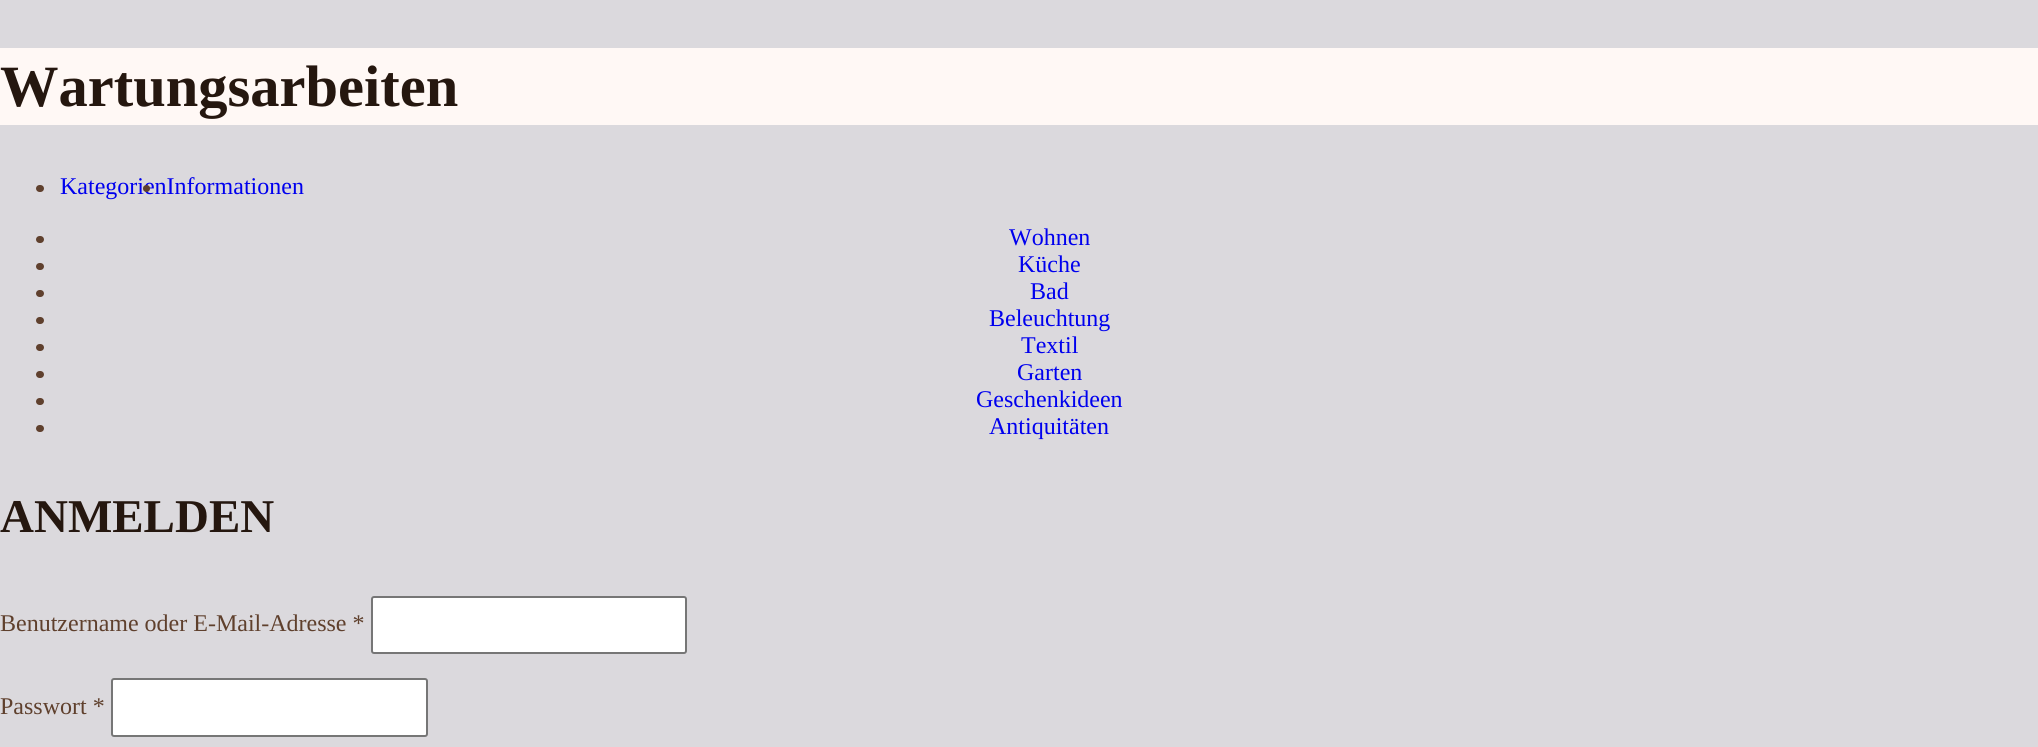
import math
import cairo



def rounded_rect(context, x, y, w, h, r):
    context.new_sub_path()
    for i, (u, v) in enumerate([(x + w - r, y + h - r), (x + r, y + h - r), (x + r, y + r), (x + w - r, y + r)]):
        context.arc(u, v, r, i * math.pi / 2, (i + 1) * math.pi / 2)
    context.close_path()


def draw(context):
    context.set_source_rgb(219 / 255, 217 / 255, 221 / 255)
    context.paint()
    context.set_source_rgb(1, 248 / 255, 245 / 255)
    context.rectangle(0, 48, 2038, 77)
    context.fill()
    context.set_source_rgb(95 / 255, 64 / 255, 45 / 255)
    rounded_rect(context, 36, 185, 8, 7, 3.5)
    context.fill()
    rounded_rect(context, 36, 236, 8, 7, 3.5)
    context.fill()
    rounded_rect(context, 36, 263, 8, 7, 3.5)
    context.fill()
    rounded_rect(context, 36, 290, 8, 7, 3.5)
    context.fill()
    rounded_rect(context, 36, 317, 8, 7, 3.5)
    context.fill()
    rounded_rect(context, 36, 344, 8, 7, 3.5)
    context.fill()
    rounded_rect(context, 36, 371, 8, 7, 3.5)
    context.fill()
    rounded_rect(context, 36, 398, 8, 7, 3.5)
    context.fill()
    rounded_rect(context, 36, 425, 8, 7, 3.5)
    context.fill()
    context.set_source_rgb(1, 1, 1)
    rounded_rect(context, 372, 597, 314, 56, 2)
    context.fill_preserve()
    context.set_source_rgb(118 / 255, 118 / 255, 118 / 255)
    context.stroke()
    context.set_source_rgb(1, 1, 1)
    rounded_rect(context, 112, 679, 315, 57, 2)
    context.fill_preserve()
    context.set_source_rgb(118 / 255, 118 / 255, 118 / 255)
    context.stroke()
    context.select_font_face("Liberation Serif", cairo.FontSlant.NORMAL, cairo.FontWeight.BOLD)
    context.set_font_size(58.5)
    context.set_source_rgb(37 / 255, 23 / 255, 15 / 255)
    context.move_to(0, 106)
    context.show_text("Wartungsarbeiten")
    context.select_font_face("Liberation Serif")
    context.set_font_size(24)
    context.set_source_rgb(0, 0, 238 / 255)
    context.move_to(60, 194)
    context.show_text("KategorienInformationen")
    context.set_source_rgb(95 / 255, 64 / 255, 45 / 255)
    context.new_path()
    context.arc(146.5, 188.5, 3.5, 0, 2 * math.pi)
    context.fill()
    context.set_source_rgb(0, 0, 238 / 255)
    context.move_to(1009, 245)
    context.show_text("Wohnen")
    context.move_to(1018, 272)
    context.show_text("Küche")
    context.move_to(1030, 299)
    context.show_text("Bad")
    context.move_to(989, 326)
    context.show_text("Beleuchtung")
    context.move_to(1021, 353)
    context.show_text("Textil")
    context.move_to(1017, 380)
    context.show_text("Garten")
    context.move_to(976, 407)
    context.show_text("Geschenkideen")
    context.move_to(989, 434)
    context.show_text("Antiquitäten")
    context.select_font_face("Liberation Serif", cairo.FontSlant.NORMAL, cairo.FontWeight.BOLD)
    context.set_font_size(47)
    context.set_source_rgb(37 / 255, 23 / 255, 15 / 255)
    context.move_to(0, 532)
    context.show_text("ANMELDEN")
    context.select_font_face("Liberation Serif")
    context.set_font_size(24)
    context.set_source_rgb(95 / 255, 64 / 255, 45 / 255)
    context.move_to(0, 631)
    context.show_text("Benutzername oder E-Mail-Adresse *")
    context.move_to(0, 714)
    context.show_text("Passwort *")


surface = cairo.ImageSurface(cairo.Format.RGB24, 2038, 747)
context = cairo.Context(surface)
options = cairo.FontOptions()
options.set_hint_metrics(cairo.HintMetrics.OFF)
options.set_hint_style(cairo.HintStyle.NONE)
context.set_font_options(options)
context.set_miter_limit(4)
draw(context)
surface.write_to_png("out.png")
